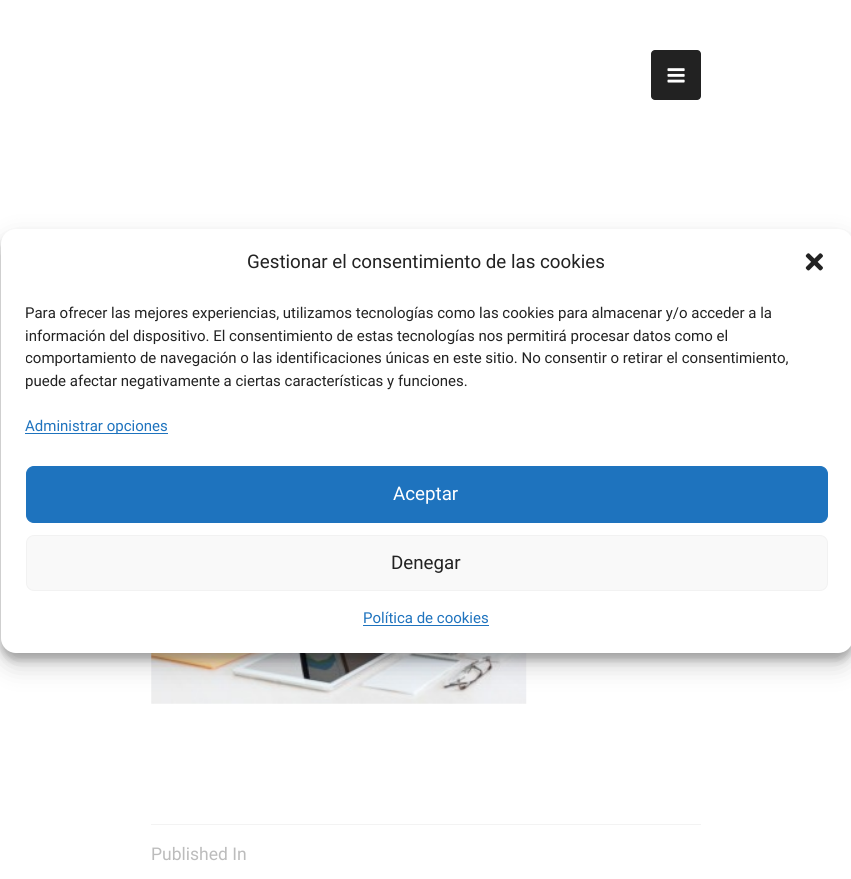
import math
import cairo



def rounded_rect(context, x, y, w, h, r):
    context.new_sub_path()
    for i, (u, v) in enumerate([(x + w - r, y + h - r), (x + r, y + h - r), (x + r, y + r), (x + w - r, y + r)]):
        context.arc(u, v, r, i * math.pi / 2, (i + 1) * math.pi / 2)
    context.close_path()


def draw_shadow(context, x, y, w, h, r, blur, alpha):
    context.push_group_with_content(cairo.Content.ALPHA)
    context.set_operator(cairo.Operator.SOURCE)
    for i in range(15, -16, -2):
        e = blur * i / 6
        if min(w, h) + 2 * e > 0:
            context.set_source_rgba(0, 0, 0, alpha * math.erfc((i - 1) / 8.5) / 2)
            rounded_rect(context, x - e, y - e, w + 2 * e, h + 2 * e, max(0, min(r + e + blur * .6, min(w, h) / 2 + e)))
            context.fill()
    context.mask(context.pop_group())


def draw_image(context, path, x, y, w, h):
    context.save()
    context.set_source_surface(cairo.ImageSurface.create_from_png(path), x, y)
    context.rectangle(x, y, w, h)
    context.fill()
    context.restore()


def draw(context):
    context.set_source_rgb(1, 1, 1)
    context.paint()
    draw_image(context, "images/3.png", 151, 653, 376, 51)
    context.set_source_rgb(0, 0, 0)
    draw_shadow(context, 1, 236, 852, 424, 15, 4, 0.23)
    draw_shadow(context, 1, 241, 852, 424, 15, 12.5, 0.19)
    context.set_source_rgb(1, 1, 1)
    rounded_rect(context, 1, 229, 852, 424, 15)
    context.fill()
    draw_image(context, "images/1.png", 805, 253, 18, 18)
    context.set_source_rgb(30 / 255, 115 / 255, 190 / 255)
    context.rectangle(25, 433, 143, 1)
    context.fill()
    rounded_rect(context, 26.5, 466.5, 801, 56, 7.5)
    context.fill_preserve()
    context.set_line_width(1)
    context.stroke()
    context.set_source_rgb(249 / 255, 249 / 255, 249 / 255)
    rounded_rect(context, 26.5, 535.5, 801, 55, 7.5)
    context.fill_preserve()
    context.set_source_rgb(242 / 255, 242 / 255, 242 / 255)
    context.stroke()
    context.set_source_rgb(30 / 255, 115 / 255, 190 / 255)
    context.rectangle(363, 625, 126, 1)
    context.fill()
    context.set_source_rgb(34 / 255, 34 / 255, 34 / 255)
    rounded_rect(context, 651, 50, 50, 50, 4)
    context.fill()
    draw_image(context, "images/2.png", 667, 68, 18, 15)
    context.set_source_rgb(243 / 255, 243 / 255, 243 / 255)
    context.rectangle(151, 824, 550, 1)
    context.fill()
    context.select_font_face("Roboto")
    context.set_font_size(18.75)
    context.set_source_rgb(34 / 255, 34 / 255, 34 / 255)
    context.move_to(247, 268)
    context.show_text("Gestionar el consentimiento de las cookies")
    context.set_font_size(15)
    context.move_to(25, 318)
    context.show_text("Para ofrecer las mejores experiencias, utilizamos tecnologías como las cookies para almacenar y/o acceder a la")
    context.move_to(25, 341)
    context.show_text("información del dispositivo. El consentimiento de estas tecnologías nos permitirá procesar datos como el")
    context.save()
    context.rectangle(26, 303, 802, 96)
    context.clip()
    context.move_to(25, 363)
    context.show_text("comportamiento de navegación o las identificaciones únicas en este sitio. No consentir o retirar el consentimiento,")
    context.restore()
    context.move_to(25, 386)
    context.show_text("puede afectar negativamente a ciertas características y funciones.")
    context.set_source_rgb(30 / 255, 115 / 255, 190 / 255)
    context.move_to(25, 431)
    context.show_text("Administrar opciones")
    context.set_font_size(18.75)
    context.set_source_rgb(1, 1, 1)
    context.move_to(393, 500)
    context.show_text("Aceptar")
    context.set_source_rgb(34 / 255, 34 / 255, 34 / 255)
    context.move_to(391, 569)
    context.show_text("Denegar")
    context.set_font_size(15)
    context.set_source_rgb(30 / 255, 115 / 255, 190 / 255)
    context.move_to(363, 623)
    context.show_text("Política de cookies")
    context.set_font_size(17.5)
    context.set_source_rgb(188 / 255, 188 / 255, 188 / 255)
    context.move_to(151, 860)
    context.show_text("Published In")


surface = cairo.ImageSurface(cairo.Format.RGB24, 851, 879)
context = cairo.Context(surface)
options = cairo.FontOptions()
options.set_hint_metrics(cairo.HintMetrics.OFF)
options.set_hint_style(cairo.HintStyle.NONE)
context.set_font_options(options)
context.set_miter_limit(4)
draw(context)
surface.write_to_png("out.png")
